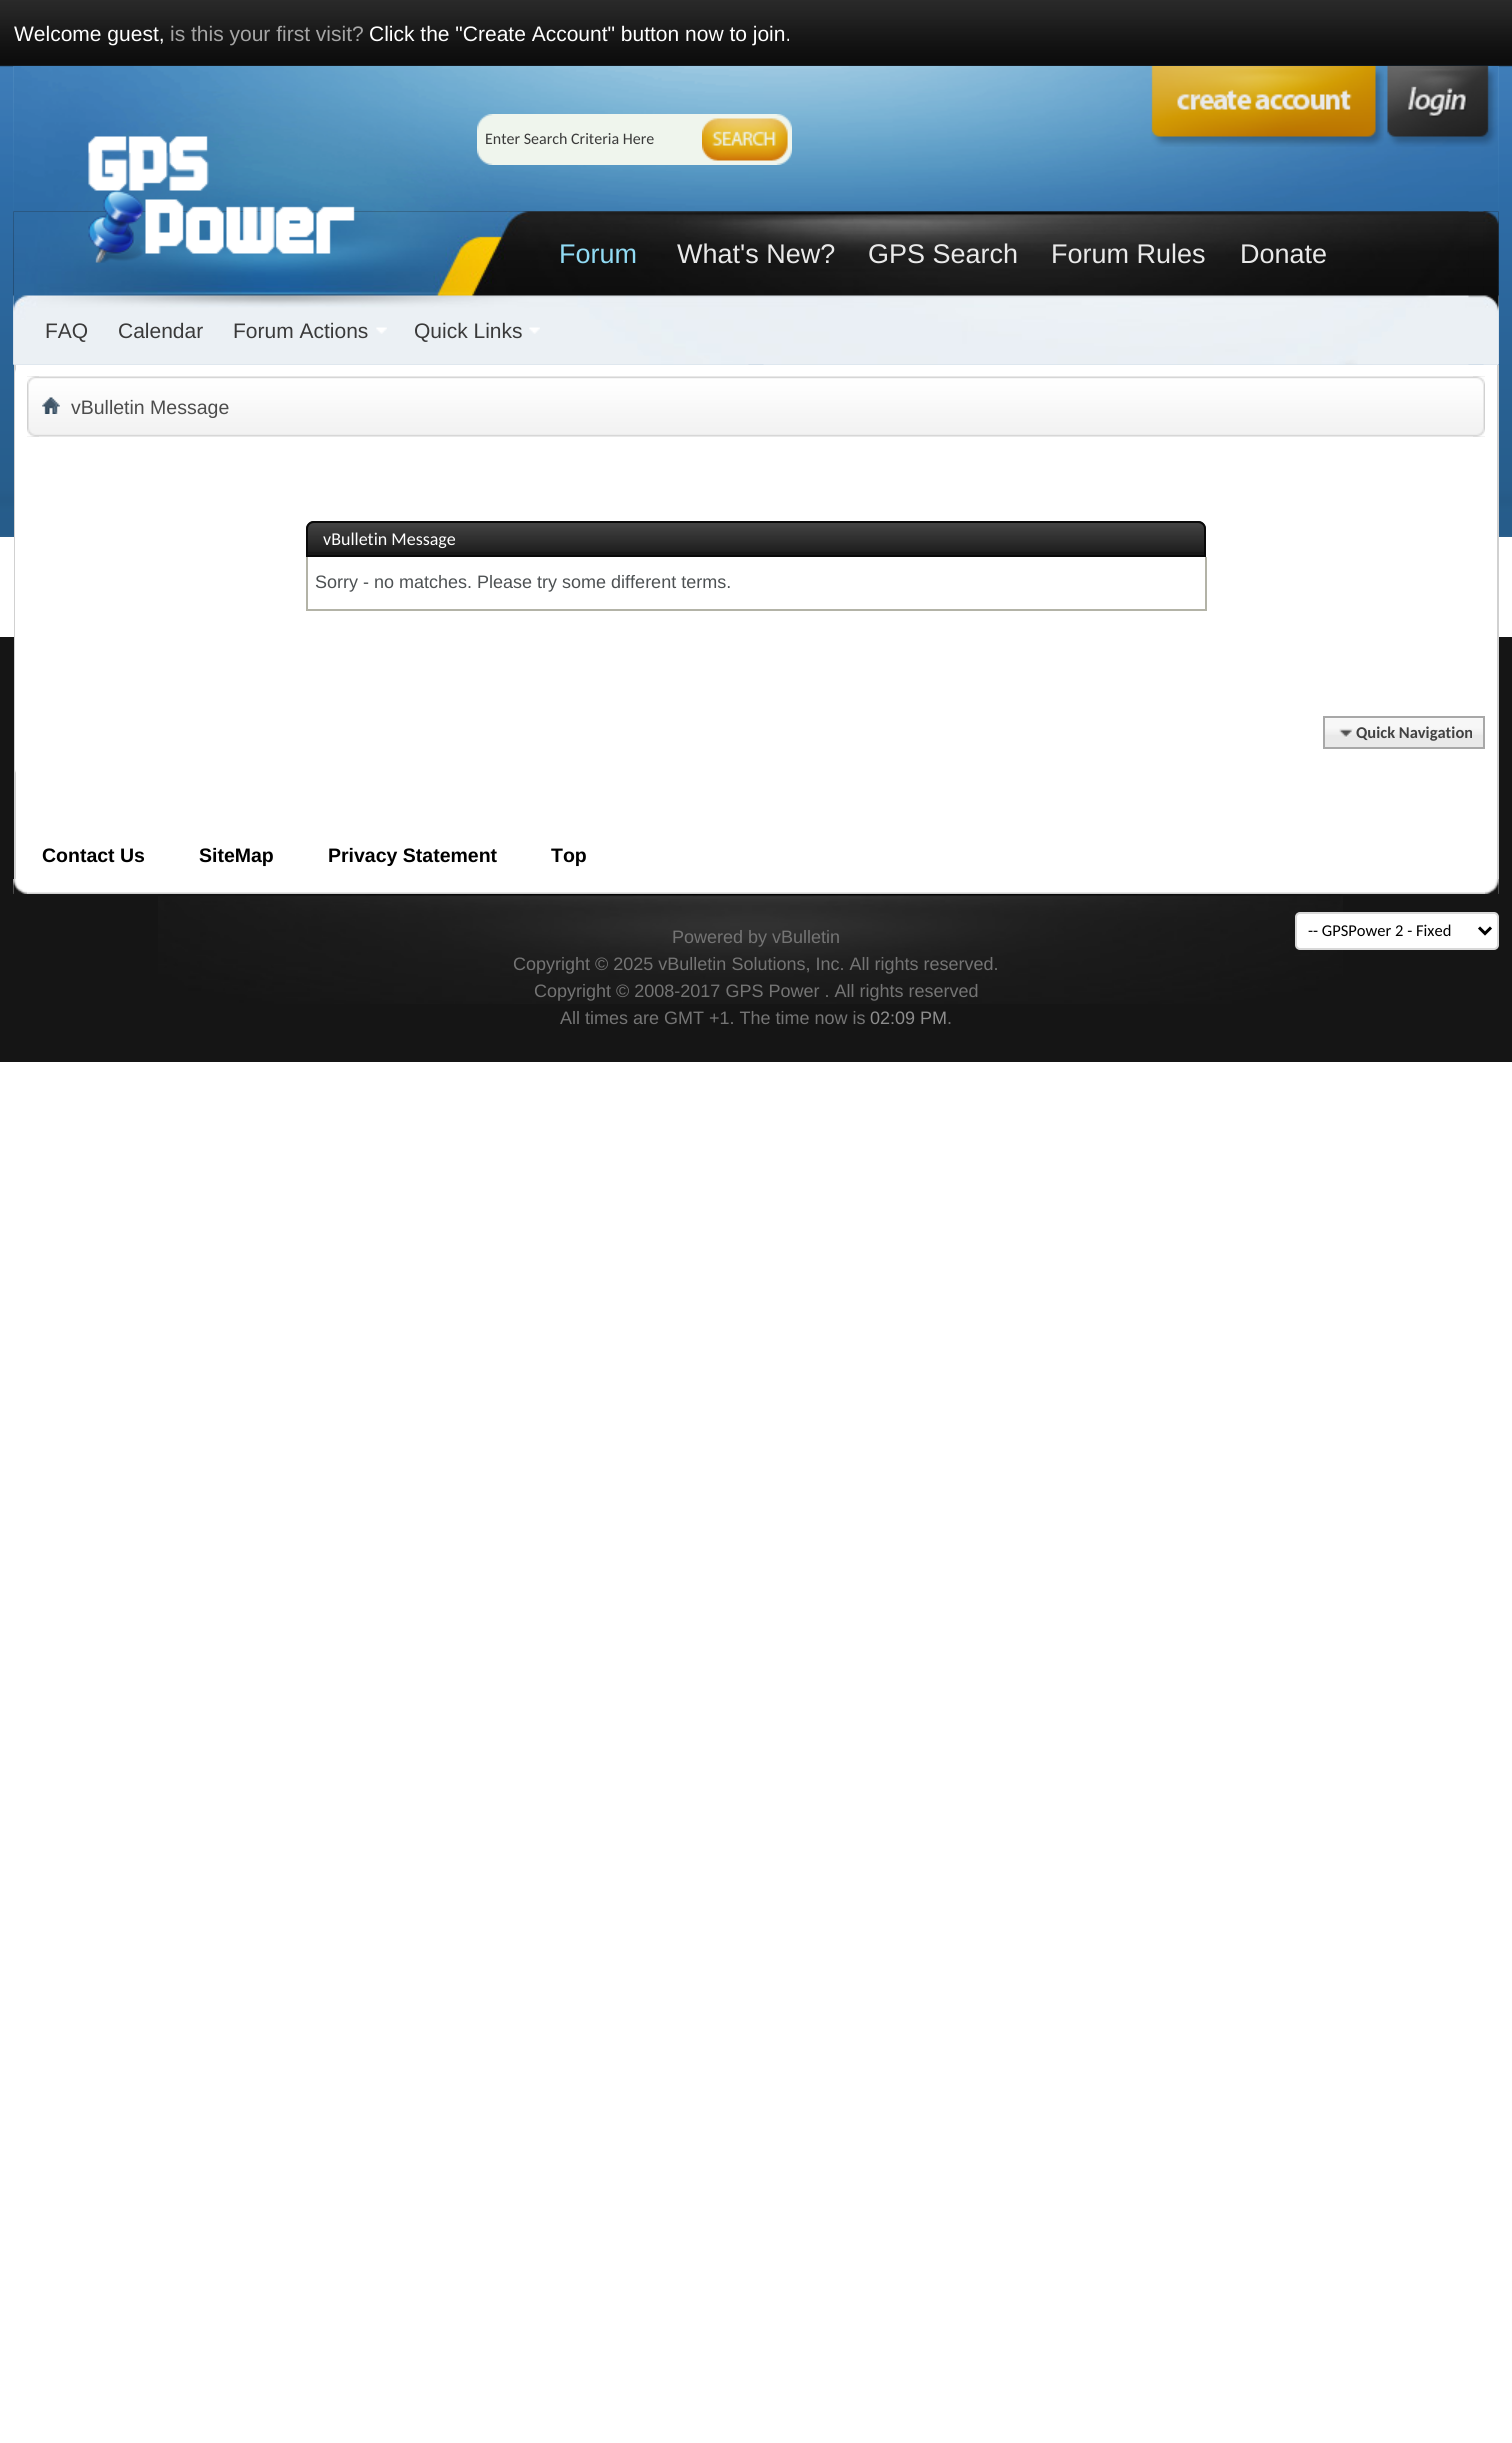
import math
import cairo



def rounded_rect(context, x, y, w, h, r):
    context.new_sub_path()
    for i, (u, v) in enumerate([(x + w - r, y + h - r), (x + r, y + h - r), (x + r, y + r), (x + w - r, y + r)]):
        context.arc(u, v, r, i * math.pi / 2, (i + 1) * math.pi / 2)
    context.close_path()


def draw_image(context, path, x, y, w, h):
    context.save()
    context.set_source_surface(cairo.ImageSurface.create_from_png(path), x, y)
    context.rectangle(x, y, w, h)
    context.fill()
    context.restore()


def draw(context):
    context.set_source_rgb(1, 1, 1)
    context.paint()
    draw_image(context, "images/1.png", 0, 0, 1512, 537)
    context.set_source_rgb(21 / 255, 21 / 255, 21 / 255)
    context.rectangle(0, 637, 1512, 425)
    context.fill()
    draw_image(context, "images/2.png", 13, 66, 1486, 299)
    draw_image(context, "images/3.png", 13, 66, 736, 299)
    draw_image(context, "images/4.png", 763, 66, 736, 299)
    draw_image(context, "images/10.png", 13, 211, 1486, 154)
    draw_image(context, "images/11.png", 13, 211, 1456, 154)
    draw_image(context, "images/5.png", 88, 136, 267, 127)
    draw_image(context, "images/6.png", 477, 114, 225, 51)
    draw_image(context, "images/7.png", 702, 114, 90, 51)
    draw_image(context, "images/8.png", 1151, 66, 233, 81)
    draw_image(context, "images/9.png", 1387, 66, 110, 81)
    draw_image(context, "images/12.png", 1483, 211, 16, 154)
    draw_image(context, "images/13.png", 376, 327, 11, 7)
    draw_image(context, "images/14.png", 529, 327, 11, 7)
    context.set_source_rgb(1, 1, 1)
    context.rectangle(16, 365, 1481, 514)
    context.fill()
    context.set_source_rgb(209 / 255, 209 / 255, 209 / 255)
    context.rectangle(1497, 365, 2, 514)
    context.fill()
    context.rectangle(14, 365, 2, 514)
    context.fill()
    context.set_source_rgb(1, 1, 1)
    rounded_rect(context, 15, 365, 1482, 412, 8)
    context.fill()
    draw_image(context, "images/15.png", 27, 376, 1458, 61)
    draw_image(context, "images/16.png", 27, 376, 12, 61)
    draw_image(context, "images/17.png", 1473, 376, 12, 61)
    draw_image(context, "images/18.png", 42, 397, 18, 17)
    context.set_source_rgb(24 / 255, 24 / 255, 24 / 255)
    context.new_path()
    context.move_to(314, 521)
    context.line_to(1198, 521)
    context.curve_to(1202.5, 521, 1206, 524.5, 1206, 529)
    context.line_to(1206, 557)
    context.line_to(306, 557)
    context.line_to(306, 529)
    context.curve_to(306, 524.5, 309.5, 521, 314, 521)
    context.close_path()
    context.fill()
    draw_image(context, "images/19.png", 306, 522, 900, 30)
    context.new_path()
    context.move_to(314, 522)
    context.line_to(1198, 522)
    context.curve_to(1202, 522, 1205, 525, 1205, 529)
    context.line_to(1205, 556)
    context.line_to(307, 556)
    context.line_to(307, 529)
    context.curve_to(307, 525, 310, 522, 314, 522)
    context.close_path()
    context.set_source_rgb(9 / 255, 9 / 255, 9 / 255)
    context.stroke()
    context.set_source_rgb(179 / 255, 179 / 255, 167 / 255)
    context.rectangle(1205, 557, 2, 54)
    context.fill()
    context.rectangle(306, 609, 900, 2)
    context.fill()
    context.rectangle(306, 557, 2, 54)
    context.fill()
    context.set_source_rgb(233 / 255, 233 / 255, 233 / 255)
    context.rectangle(1325, 718, 158, 29)
    context.fill()
    draw_image(context, "images/20.png", 1325, 718, 158, 17)
    context.rectangle(1324, 717, 160, 31)
    context.set_source_rgb(168 / 255, 168 / 255, 168 / 255)
    context.stroke()
    draw_image(context, "images/21.png", 1339, 728, 14, 10)
    draw_image(context, "images/22.png", 13, 879, 1486, 15)
    draw_image(context, "images/23.png", 13, 879, 14, 15)
    draw_image(context, "images/24.png", 1485, 879, 14, 15)
    draw_image(context, "images/25.png", 158, 894, 1185, 110)
    context.set_source_rgb(1, 1, 1)
    rounded_rect(context, 1296, 913, 202, 36, 4)
    context.fill_preserve()
    context.set_source_rgb(216 / 255, 216 / 255, 216 / 255)
    context.stroke()
    context.new_path()
    context.move_to(1479, 927.5)
    context.line_to(1485, 933.5)
    context.line_to(1491, 927.5)
    context.set_source_rgb(0, 0, 0)
    context.set_line_width(3)
    context.stroke()
    context.select_font_face("Liberation Sans")
    context.set_font_size(21)
    context.set_source_rgb(1, 1, 1)
    context.move_to(14, 41)
    context.show_text("Welcome guest,")
    context.set_source_rgb(165 / 255, 165 / 255, 165 / 255)
    context.move_to(170, 41)
    context.show_text("is this your first visit?")
    context.set_source_rgb(1, 1, 1)
    context.move_to(369, 41)
    context.show_text("Click the \"Create Account\" button now to join.")
    context.select_font_face("Carlito")
    context.set_font_size(16)
    context.set_source_rgb(58 / 255, 58 / 255, 58 / 255)
    context.move_to(485, 144)
    context.show_text("Enter Search Criteria Here")
    context.select_font_face("Liberation Sans")
    context.set_font_size(27)
    context.set_source_rgb(145 / 255, 219 / 255, 244 / 255)
    context.move_to(559, 263)
    context.show_text("Forum")
    context.set_source_rgb(233 / 255, 233 / 255, 233 / 255)
    context.move_to(677, 263)
    context.show_text("What's New?")
    context.move_to(868, 263)
    context.show_text("GPS Search")
    context.move_to(1051, 263)
    context.show_text("Forum Rules")
    context.move_to(1240, 263)
    context.show_text("Donate")
    context.set_font_size(21)
    context.set_source_rgb(58 / 255, 58 / 255, 58 / 255)
    context.move_to(45, 338)
    context.show_text("FAQ")
    context.move_to(118, 338)
    context.show_text("Calendar")
    context.move_to(233, 338)
    context.show_text("Forum Actions")
    context.move_to(414, 338)
    context.show_text("Quick Links")
    context.set_font_size(19.5)
    context.set_source_rgb(76 / 255, 76 / 255, 76 / 255)
    context.move_to(71, 414)
    context.show_text("vBulletin Message")
    context.select_font_face("Carlito")
    context.set_font_size(18)
    context.set_source_rgb(1, 1, 1)
    context.move_to(323, 545)
    context.show_text("vBulletin Message")
    context.select_font_face("Liberation Sans")
    context.set_source_rgb(77 / 255, 81 / 255, 83 / 255)
    context.move_to(315, 588)
    context.show_text("Sorry - no matches. Please try some different terms.")
    context.select_font_face("Carlito", cairo.FontSlant.NORMAL, cairo.FontWeight.BOLD)
    context.set_font_size(16.5)
    context.set_source_rgb(66 / 255, 66 / 255, 66 / 255)
    context.move_to(1356, 738)
    context.show_text("Quick Navigation")
    context.select_font_face("Liberation Sans", cairo.FontSlant.NORMAL, cairo.FontWeight.BOLD)
    context.set_font_size(19.5)
    context.set_source_rgb(0, 0, 0)
    context.move_to(42, 862)
    context.show_text("Contact Us")
    context.move_to(199, 862)
    context.show_text("SiteMap")
    context.move_to(328, 862)
    context.show_text("Privacy Statement")
    context.move_to(551, 862)
    context.show_text("Top")
    context.select_font_face("Liberation Sans")
    context.set_font_size(18)
    context.set_source_rgb(116 / 255, 116 / 255, 116 / 255)
    context.move_to(672, 943)
    context.show_text("Powered by vBulletin")
    context.move_to(513, 970)
    context.show_text("Copyright © 2025 vBulletin Solutions, Inc. All rights reserved.")
    context.move_to(534, 997)
    context.show_text("Copyright © 2008-2017 GPS Power . All rights reserved")
    context.move_to(560, 1024)
    context.show_text("All times are GMT +1. The time now is")
    context.set_source_rgb(141 / 255, 141 / 255, 141 / 255)
    context.move_to(870, 1024)
    context.show_text("02:09 PM")
    context.set_source_rgb(116 / 255, 116 / 255, 116 / 255)
    context.move_to(947, 1024)
    context.show_text(".")
    context.select_font_face("Carlito")
    context.set_font_size(16.5)
    context.set_source_rgb(0, 0, 0)
    context.move_to(1308, 936)
    context.show_text("-- GPSPower 2 - Fixed")


surface = cairo.ImageSurface(cairo.Format.RGB24, 1512, 2443)
context = cairo.Context(surface)
options = cairo.FontOptions()
options.set_hint_metrics(cairo.HintMetrics.OFF)
options.set_hint_style(cairo.HintStyle.NONE)
context.set_font_options(options)
context.set_miter_limit(4)
draw(context)
surface.write_to_png("out.png")
